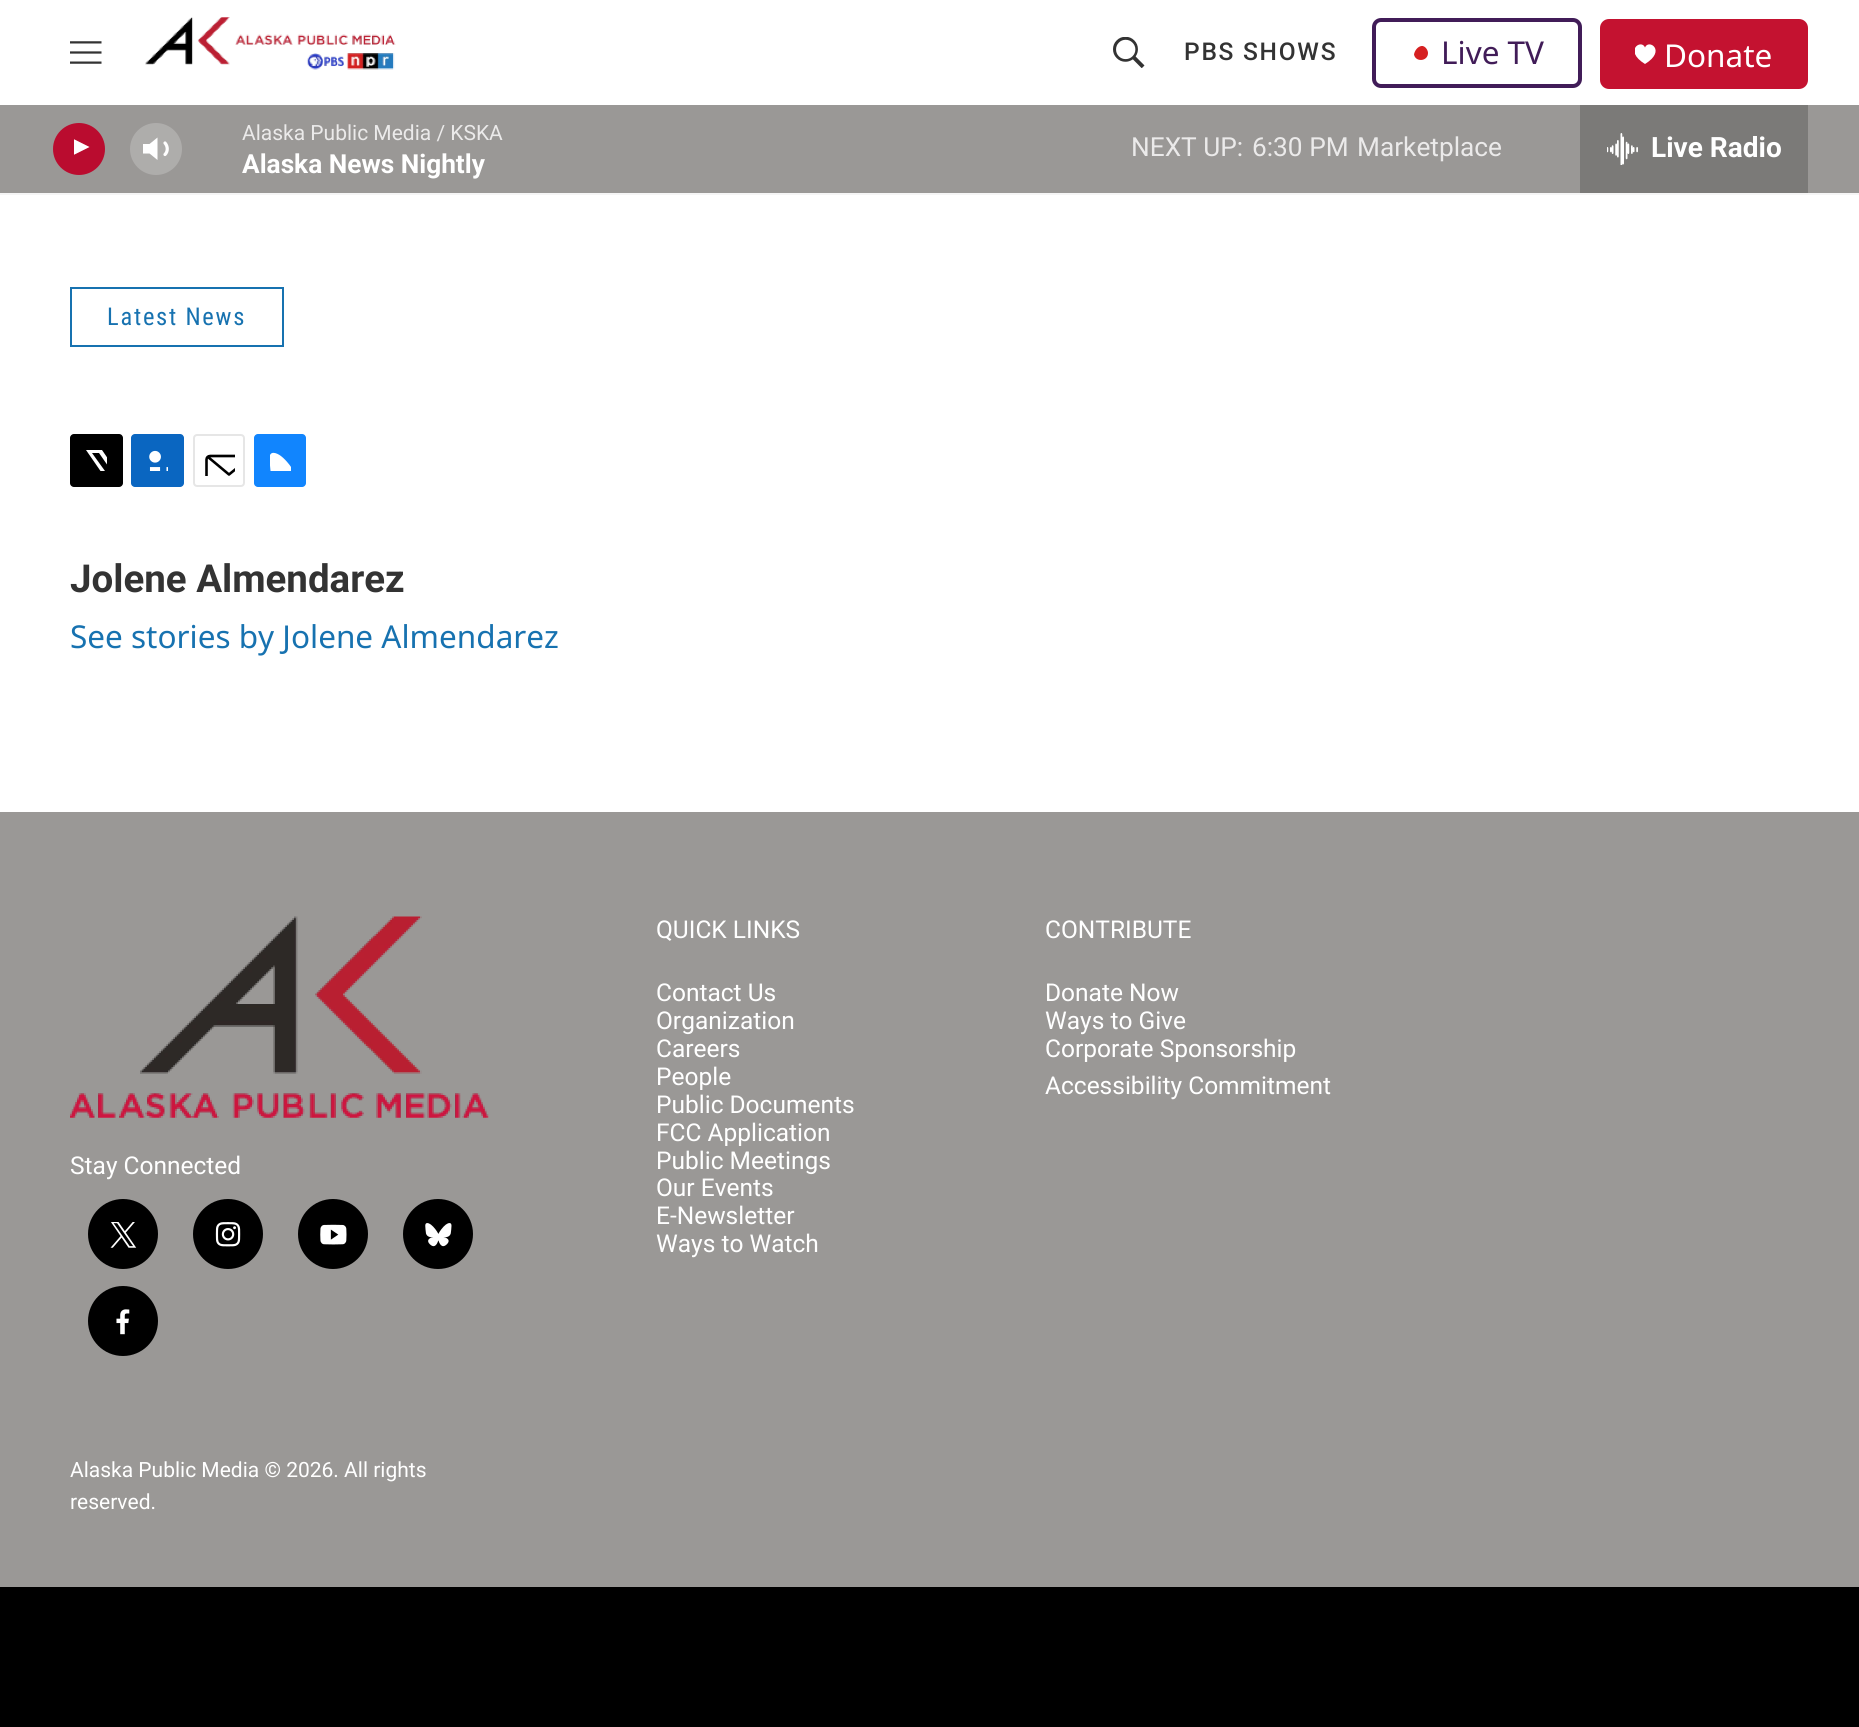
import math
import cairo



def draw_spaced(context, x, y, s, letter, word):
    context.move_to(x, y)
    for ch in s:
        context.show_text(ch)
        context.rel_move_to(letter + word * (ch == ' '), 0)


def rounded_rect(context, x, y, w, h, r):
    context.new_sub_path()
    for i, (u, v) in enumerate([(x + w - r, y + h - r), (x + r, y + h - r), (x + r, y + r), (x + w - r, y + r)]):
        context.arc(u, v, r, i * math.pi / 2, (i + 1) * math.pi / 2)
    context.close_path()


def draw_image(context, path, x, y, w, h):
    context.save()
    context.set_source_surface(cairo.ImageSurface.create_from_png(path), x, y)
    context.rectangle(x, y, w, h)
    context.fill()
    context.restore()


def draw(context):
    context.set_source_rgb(1, 1, 1)
    context.paint()
    context.set_source_rgb(245 / 255, 245 / 255, 245 / 255)
    context.rectangle(0, 193, 1859, 2)
    context.fill()
    draw_image(context, "images/1.png", 70, 41, 32, 23)
    draw_image(context, "images/2.png", 145, 17, 251, 53)
    draw_image(context, "images/3.png", 1113, 37, 32, 31)
    rounded_rect(context, 1374, 20, 206, 66, 7)
    context.set_source_rgb(65 / 255, 28 / 255, 88 / 255)
    context.set_line_width(4)
    context.stroke()
    context.set_source_rgb(214 / 255, 32 / 255, 33 / 255)
    context.new_path()
    context.move_to(1414, 54.5)
    context.curve_to(1414.5, 51, 1417.5, 46.5, 1421.5, 46)
    context.curve_to(1425, 45.5, 1428, 50, 1428, 53)
    context.curve_to(1428, 61.5, 1415.5, 62.5, 1414, 54.5)
    context.close_path()
    context.fill()
    context.set_source_rgb(196 / 255, 18 / 255, 48 / 255)
    rounded_rect(context, 1600, 19, 208, 70, 9)
    context.fill()
    context.save()
    context.rectangle(1635, 44, 21, 21)
    context.clip()
    context.set_source_rgb(1, 1, 1)
    context.new_path()
    context.move_to(1645, 47.5)
    context.curve_to(1641.5, 38.5, 1623, 50.5, 1645, 64)
    context.curve_to(1667, 50.5, 1648.5, 38.5, 1645, 47.5)
    context.close_path()
    context.fill()
    context.restore()
    context.set_source_rgb(154 / 255, 152 / 255, 150 / 255)
    context.rectangle(0, 105, 1859, 88)
    context.fill()
    context.set_source_rgb(186 / 255, 12 / 255, 47 / 255)
    context.arc(79, 149, 26, 0, 2 * math.pi)
    context.fill()
    context.save()
    context.rectangle(74, 137, 20, 26)
    context.clip()
    context.set_source_rgb(1, 1, 1)
    context.new_path()
    context.move_to(72.5, 138.5)
    context.line_to(89.5, 147)
    context.line_to(72.5, 155.5)
    context.close_path()
    context.fill()
    context.restore()
    context.set_source_rgb(1, 1, 1)
    context.new_path()
    context.move_to(157.5, 137.5)
    context.line_to(149.5, 144)
    context.line_to(143, 144)
    context.line_to(143, 153.5)
    context.line_to(149.5, 153.5)
    context.line_to(157.5, 160)
    context.close_path()
    context.fill()
    context.new_path()
    context.move_to(165, 143)
    context.curve_to(168, 146.5, 168, 151.5, 165, 154.5)
    context.set_line_width(3.2)
    context.set_line_cap(cairo.LineCap.ROUND)
    context.set_line_join(cairo.LineJoin.ROUND)
    context.stroke()
    context.set_source_rgba(1, 1, 1, 0.2)
    context.arc(156, 149, 26, 0, 2 * math.pi)
    context.fill()
    context.set_source_rgb(123 / 255, 122 / 255, 120 / 255)
    context.rectangle(1580, 105, 228, 88)
    context.fill()
    draw_image(context, "images/4.png", 1607, 133, 31, 32)
    context.rectangle(71, 288, 212, 58)
    context.set_source_rgb(23 / 255, 114 / 255, 176 / 255)
    context.set_line_width(2)
    context.set_line_cap(cairo.LineCap.BUTT)
    context.set_line_join(cairo.LineJoin.MITER)
    context.stroke()
    context.set_source_rgb(0, 0, 0)
    rounded_rect(context, 70, 434, 53, 53, 4)
    context.fill()
    context.save()
    context.rectangle(86, 450, 21, 21)
    context.clip()
    context.set_source_rgb(1, 1, 1)
    context.new_path()
    context.move_to(117, 472)
    context.line_to(123, 480.5)
    context.curve_to(123, 482.5, 123.5, 484.5, 122, 486)
    context.line_to(99, 453)
    context.line_to(92, 453)
    context.line_to(116.5, 487)
    context.line_to(111.5, 487)
    context.line_to(108, 482)
    context.line_to(104, 487)
    context.line_to(99, 487)
    context.line_to(106, 479)
    context.line_to(86, 450)
    context.line_to(102, 450)
    context.line_to(115, 469)
    context.line_to(123, 459.5)
    context.line_to(123, 465)
    context.close_path()
    context.fill()
    context.restore()
    context.set_source_rgb(10 / 255, 102 / 255, 193 / 255)
    rounded_rect(context, 131, 434, 53, 53, 4)
    context.fill()
    draw_image(context, "images/5.png", 149, 450, 19, 21)
    rounded_rect(context, 194, 435, 50, 51, 3)
    context.set_source_rgb(230 / 255, 230 / 255, 230 / 255)
    context.stroke()
    context.save()
    context.rectangle(203, 445, 32, 31)
    context.clip()
    context.new_path()
    context.move_to(252, 483)
    context.curve_to(252, 484.5, 250.5, 486, 248.5, 486)
    context.line_to(210, 486)
    context.curve_to(208, 486, 206.5, 484.5, 206.5, 483)
    context.line_to(206.5, 459.5)
    context.curve_to(206.5, 457.5, 208, 456, 210, 456)
    context.line_to(248.5, 456)
    context.curve_to(250.5, 456, 252, 457.5, 252, 459.5)
    context.close_path()
    context.move_to(250.5, 457)
    context.line_to(229, 474.5)
    context.line_to(208, 457)
    context.set_source_rgb(0, 0, 0)
    context.set_line_width(2.6)
    context.set_line_cap(cairo.LineCap.ROUND)
    context.set_line_join(cairo.LineJoin.ROUND)
    context.stroke()
    context.restore()
    context.set_source_rgb(17 / 255, 133 / 255, 254 / 255)
    rounded_rect(context, 254, 434, 52, 53, 4)
    context.fill()
    draw_image(context, "images/6.png", 270, 452, 21, 19)
    context.set_source_rgb(154 / 255, 152 / 255, 150 / 255)
    context.rectangle(0, 812, 1859, 775)
    context.fill()
    draw_image(context, "images/7.png", 70, 916, 419, 202)
    context.set_source_rgb(0, 0, 0)
    context.arc(123, 1234, 35, 0, 2 * math.pi)
    context.fill()
    draw_image(context, "images/8.png", 110, 1222, 27, 26)
    context.arc(228, 1234, 35, 0, 2 * math.pi)
    context.fill()
    draw_image(context, "images/9.png", 215, 1222, 26, 25)
    context.arc(333, 1234, 35, 0, 2 * math.pi)
    context.fill()
    draw_image(context, "images/10.png", 320, 1224, 27, 21)
    context.arc(438, 1234, 35, 0, 2 * math.pi)
    context.fill()
    draw_image(context, "images/11.png", 425, 1223, 27, 24)
    context.arc(123, 1321, 35, 0, 2 * math.pi)
    context.fill()
    draw_image(context, "images/12.png", 116, 1309, 14, 26)
    context.rectangle(0, 1587, 1859, 140)
    context.fill()
    context.select_font_face("Roboto Medium")
    context.set_font_size(24.5)
    context.set_source_rgb(51 / 255, 51 / 255, 51 / 255)
    draw_spaced(context, 1184, 60, "PBS SHOWS", 1.75, 0)
    context.select_font_face("Noto Sans")
    context.set_font_size(31.5)
    context.set_source_rgb(65 / 255, 28 / 255, 88 / 255)
    context.move_to(1441, 64)
    context.show_text("Live TV")
    context.set_source_rgb(1, 1, 1)
    context.move_to(1664, 67)
    context.show_text("Donate")
    context.select_font_face("Roboto")
    context.set_font_size(21)
    context.set_source_rgb(235 / 255, 234 / 255, 234 / 255)
    context.move_to(242, 140)
    context.show_text("Alaska Public Media / KSKA")
    context.select_font_face("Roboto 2", cairo.FontSlant.NORMAL, cairo.FontWeight.BOLD)
    context.set_font_size(26.25)
    context.set_source_rgb(1, 1, 1)
    context.move_to(242, 173)
    context.show_text("Alaska News Nightly")
    context.select_font_face("Roboto")
    context.set_source_rgb(235 / 255, 234 / 255, 234 / 255)
    context.move_to(1131, 156)
    context.show_text("NEXT UP:")
    context.move_to(1252, 156)
    context.show_text("6:30 PM")
    context.move_to(1357, 156)
    context.show_text("Marketplace")
    context.select_font_face("Roboto 2", cairo.FontSlant.NORMAL, cairo.FontWeight.BOLD)
    context.set_font_size(28)
    context.set_source_rgb(1, 1, 1)
    context.move_to(1651, 157)
    context.show_text("Live Radio")
    context.select_font_face("Roboto Condensed")
    context.set_font_size(24.5)
    context.set_source_rgb(23 / 255, 114 / 255, 176 / 255)
    draw_spaced(context, 107, 325, "Latest News", 1.75, 0)
    context.select_font_face("Roboto", cairo.FontSlant.NORMAL, cairo.FontWeight.BOLD)
    context.set_font_size(38.5)
    context.set_source_rgb(51 / 255, 51 / 255, 51 / 255)
    context.move_to(70, 592)
    context.show_text("Jolene Almendarez")
    context.select_font_face("Noto Sans")
    context.set_font_size(31.5)
    context.set_source_rgb(23 / 255, 114 / 255, 176 / 255)
    context.move_to(70, 648)
    context.show_text("See stories by Jolene Almendarez")
    context.select_font_face("Roboto")
    context.set_font_size(24.5)
    context.set_source_rgb(1, 1, 1)
    context.move_to(656, 938)
    context.show_text("QUICK LINKS")
    context.move_to(656, 1001)
    context.show_text("Contact Us")
    context.move_to(656, 1029)
    context.show_text("Organization")
    context.move_to(656, 1057)
    context.show_text("Careers")
    context.move_to(656, 1085)
    context.show_text("People")
    context.move_to(656, 1113)
    context.show_text("Public Documents")
    context.move_to(656, 1141)
    context.show_text("FCC Application")
    context.move_to(656, 1169)
    context.show_text("Public Meetings")
    context.move_to(656, 1196)
    context.show_text("Our Events")
    context.move_to(656, 1224)
    context.show_text("E-Newsletter")
    context.move_to(656, 1252)
    context.show_text("Ways to Watch")
    context.move_to(1045, 938)
    context.show_text("CONTRIBUTE")
    context.move_to(1045, 1001)
    context.show_text("Donate Now")
    context.move_to(1045, 1029)
    context.show_text("Ways to Give")
    context.move_to(1045, 1057)
    context.show_text("Corporate Sponsorship")
    context.move_to(1045, 1094)
    context.show_text("Accessibility Commitment")
    context.move_to(70, 1174)
    context.show_text("Stay Connected")
    context.set_font_size(21)
    context.move_to(70, 1477)
    context.show_text("Alaska Public Media © 2026. All rights")
    context.move_to(70, 1509)
    context.show_text("reserved.")


surface = cairo.ImageSurface(cairo.Format.RGB24, 1859, 1727)
context = cairo.Context(surface)
options = cairo.FontOptions()
options.set_hint_metrics(cairo.HintMetrics.OFF)
options.set_hint_style(cairo.HintStyle.NONE)
context.set_font_options(options)
context.set_miter_limit(4)
draw(context)
surface.write_to_png("out.png")
